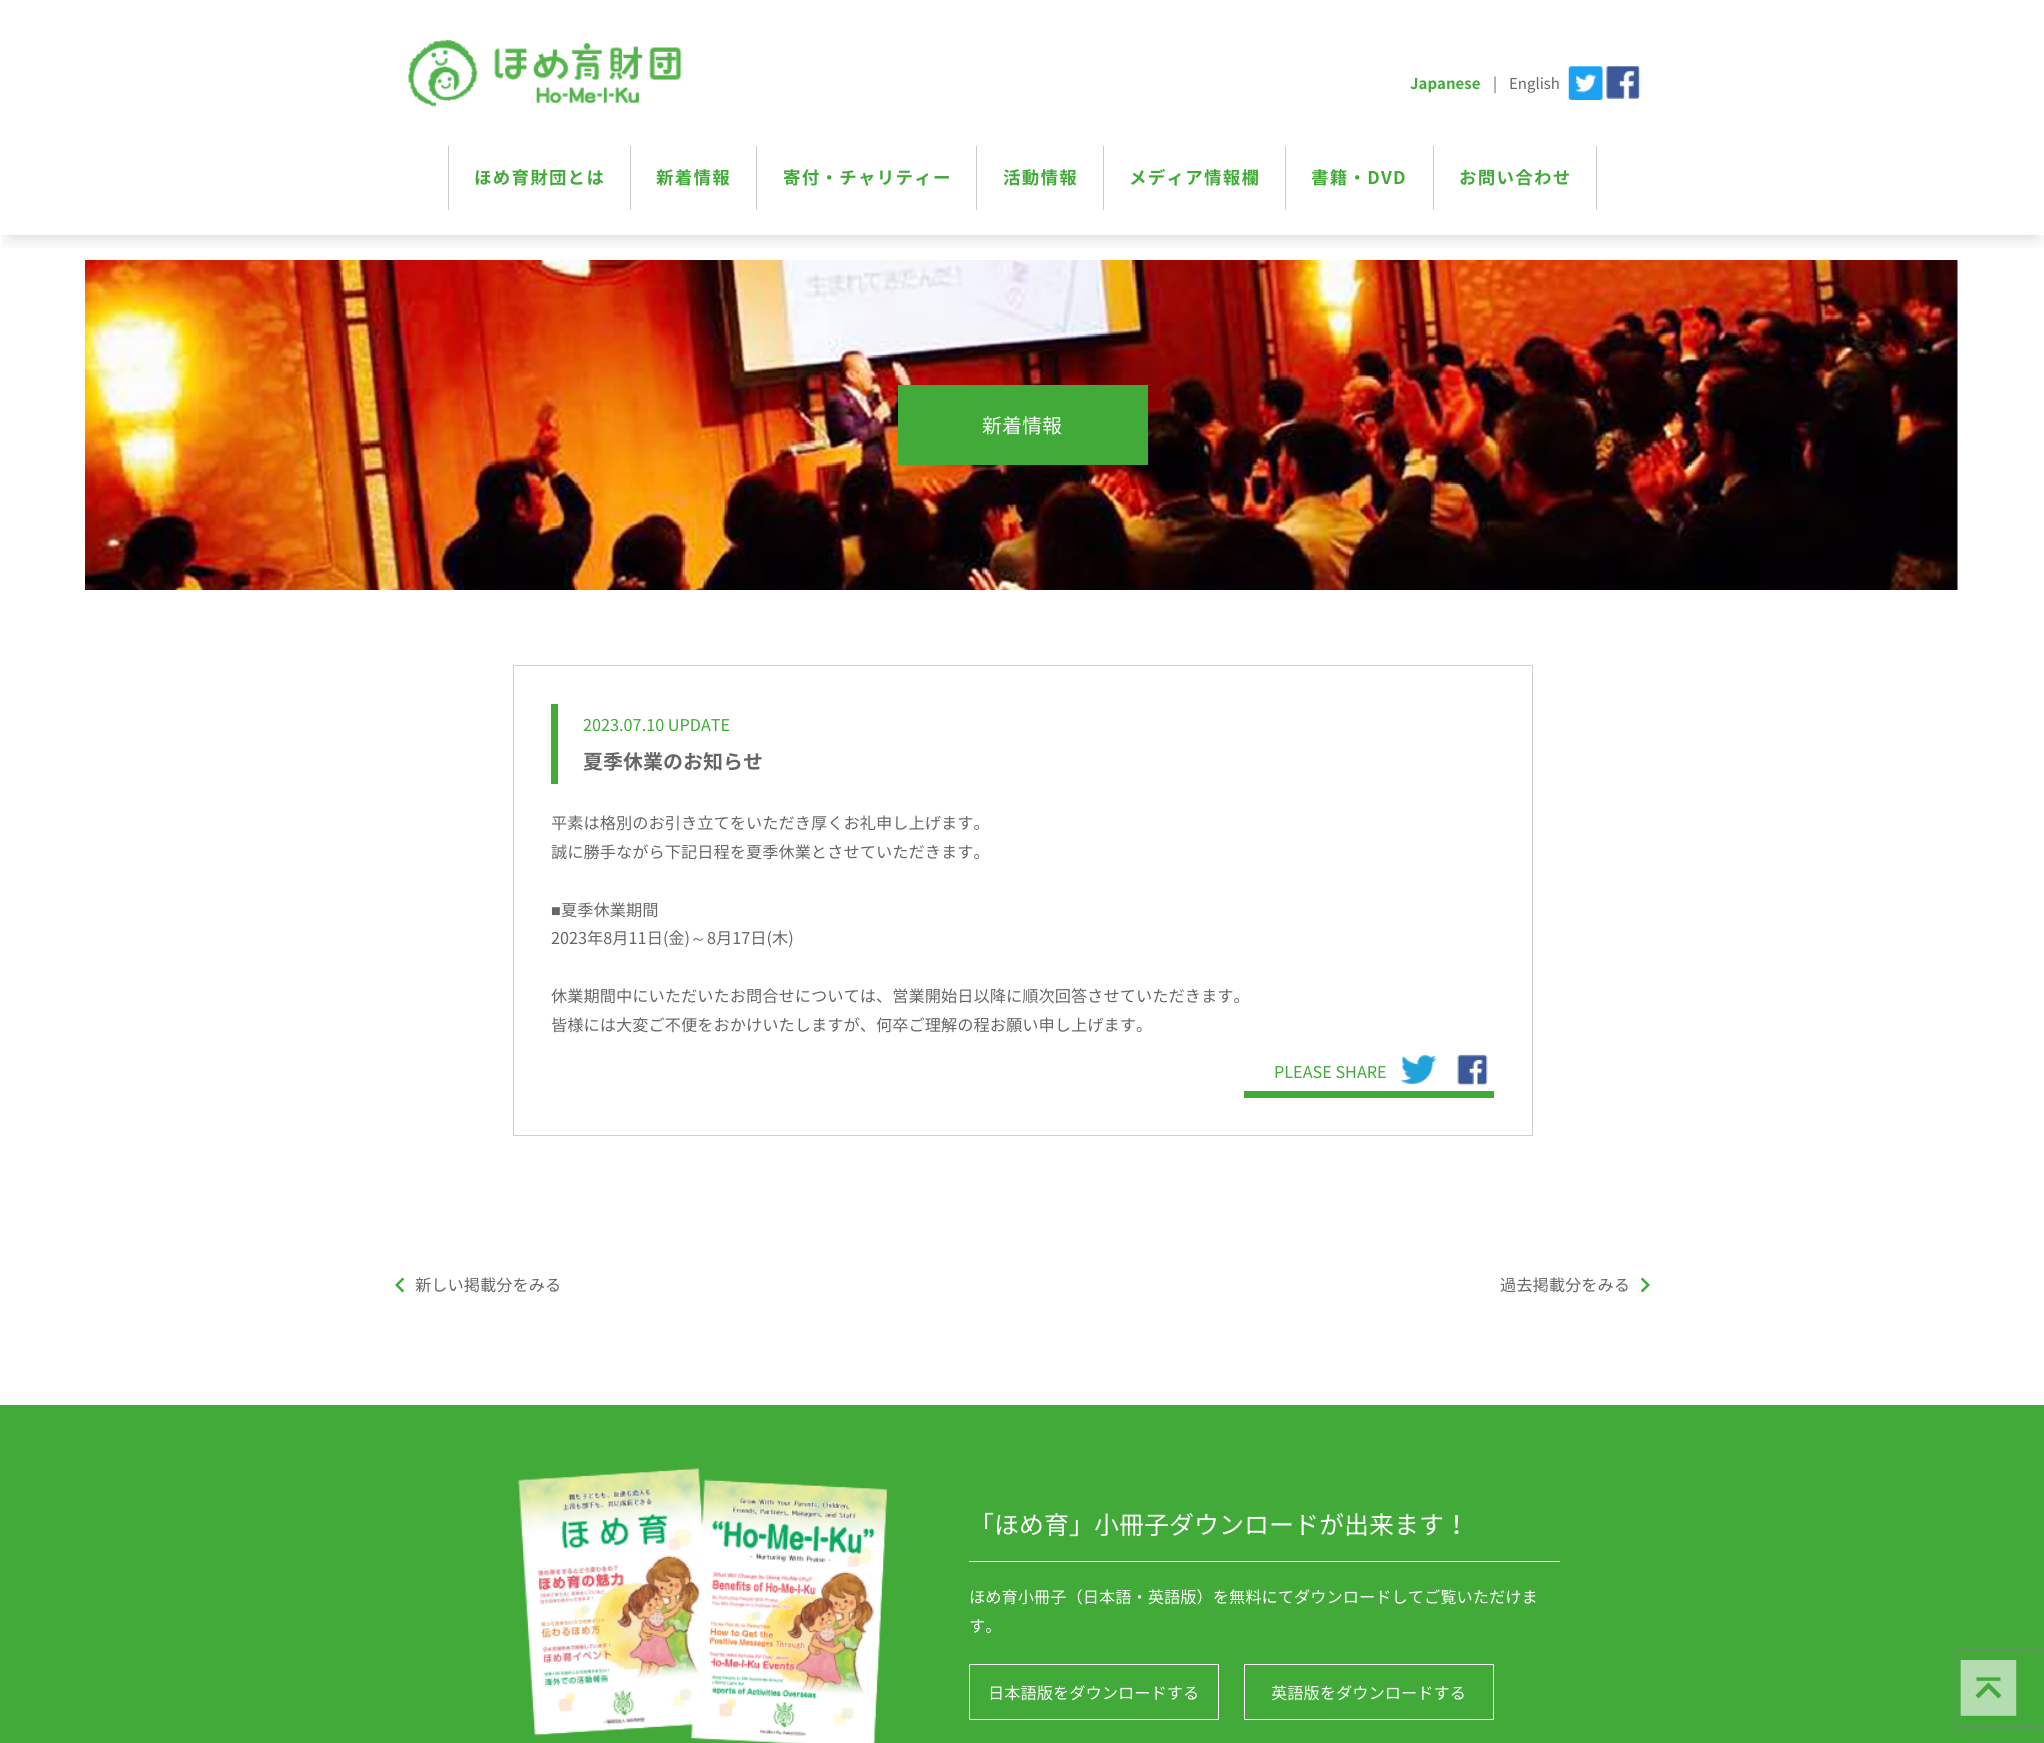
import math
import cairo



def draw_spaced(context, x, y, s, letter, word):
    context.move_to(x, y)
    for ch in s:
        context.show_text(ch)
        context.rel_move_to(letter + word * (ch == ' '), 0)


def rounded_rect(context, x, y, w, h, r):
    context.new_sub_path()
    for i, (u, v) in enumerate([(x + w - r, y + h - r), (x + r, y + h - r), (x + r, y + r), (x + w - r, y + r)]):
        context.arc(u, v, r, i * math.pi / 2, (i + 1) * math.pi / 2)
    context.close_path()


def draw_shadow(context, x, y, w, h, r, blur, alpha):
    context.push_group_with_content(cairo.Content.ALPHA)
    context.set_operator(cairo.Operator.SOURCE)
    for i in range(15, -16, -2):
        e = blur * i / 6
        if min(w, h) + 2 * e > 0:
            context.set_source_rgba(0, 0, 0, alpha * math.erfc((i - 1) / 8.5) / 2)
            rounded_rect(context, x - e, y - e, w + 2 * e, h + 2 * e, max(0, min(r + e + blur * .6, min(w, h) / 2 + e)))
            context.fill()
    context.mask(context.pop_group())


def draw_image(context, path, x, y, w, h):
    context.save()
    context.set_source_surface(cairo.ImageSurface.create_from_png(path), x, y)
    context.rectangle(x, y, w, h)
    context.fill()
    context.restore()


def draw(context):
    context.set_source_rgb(1, 1, 1)
    context.paint()
    context.save()
    context.rectangle(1, 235, 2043, 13)
    context.clip()
    context.set_source_rgb(0, 0, 0)
    draw_shadow(context, 9, 18, 2027, 217, 0, 10, 0.2)
    context.restore()
    draw_image(context, "images/1.png", 407, 40, 275, 67)
    draw_image(context, "images/2.png", 1568, 66, 35, 34)
    draw_image(context, "images/3.png", 1606, 66, 35, 33)
    context.set_source_rgb(204 / 255, 204 / 255, 204 / 255)
    context.rectangle(630, 146, 1, 64)
    context.fill()
    context.rectangle(448, 146, 1, 64)
    context.fill()
    context.rectangle(756, 146, 1, 64)
    context.fill()
    context.rectangle(976, 146, 1, 64)
    context.fill()
    context.rectangle(1103, 146, 1, 64)
    context.fill()
    context.rectangle(1285, 146, 1, 64)
    context.fill()
    context.rectangle(1433, 146, 1, 64)
    context.fill()
    context.rectangle(1596, 146, 1, 64)
    context.fill()
    draw_image(context, "images/4.png", 85, 260, 1873, 330)
    context.set_source_rgb(65 / 255, 170 / 255, 57 / 255)
    context.rectangle(898, 385, 250, 80)
    context.fill()
    context.rectangle(513.5, 665.5, 1019, 470)
    context.set_source_rgb(207 / 255, 207 / 255, 207 / 255)
    context.set_line_width(1)
    context.stroke()
    context.set_source_rgb(65 / 255, 170 / 255, 57 / 255)
    context.rectangle(551, 704, 7, 80)
    context.fill()
    context.rectangle(1244, 1091, 250, 7)
    context.fill()
    draw_image(context, "images/5.png", 1400, 1054, 37, 30)
    draw_image(context, "images/6.png", 1457, 1054, 31, 32)
    draw_image(context, "images/7.png", 395, 1277, 10, 16)
    draw_image(context, "images/8.png", 1640, 1277, 10, 16)
    context.rectangle(0, 1405, 2044, 338)
    context.fill()
    draw_image(context, "images/9.png", 518, 1468, 370, 275)
    context.set_source_rgb(1, 1, 1)
    context.rectangle(969, 1561, 591, 1)
    context.fill()
    context.rectangle(969.5, 1664.5, 249, 55)
    context.stroke()
    context.rectangle(1244.5, 1664.5, 249, 55)
    context.stroke()
    context.save()
    context.set_fill_rule(cairo.FillRule.EVEN_ODD)
    context.new_path()
    context.move_to(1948, 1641)
    context.line_to(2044, 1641)
    context.line_to(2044, 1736)
    context.line_to(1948, 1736)
    context.close_path()
    context.move_to(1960.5, 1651)
    context.line_to(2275.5, 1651)
    context.curve_to(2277, 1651, 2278, 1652, 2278, 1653.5)
    context.line_to(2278, 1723.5)
    context.curve_to(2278, 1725, 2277, 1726, 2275.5, 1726)
    context.line_to(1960.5, 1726)
    context.curve_to(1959, 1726, 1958, 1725, 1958, 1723.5)
    context.line_to(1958, 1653.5)
    context.curve_to(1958, 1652, 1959, 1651, 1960.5, 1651)
    context.close_path()
    context.clip()
    context.set_source_rgb(128 / 255, 128 / 255, 128 / 255)
    draw_shadow(context, 1958, 1651, 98, 75, 2.5, 3, 1)
    context.restore()
    draw_image(context, "images/10.png", 1960, 1660, 57, 56)
    context.select_font_face("Noto Sans JP", cairo.FontSlant.NORMAL, cairo.FontWeight.BOLD)
    context.set_font_size(15)
    context.set_source_rgb(65 / 255, 170 / 255, 57 / 255)
    context.move_to(1410, 89)
    context.show_text("Japanese")
    context.select_font_face("Noto Sans JP")
    context.set_source_rgb(102 / 255, 102 / 255, 102 / 255)
    context.move_to(1493, 89)
    context.show_text("|")
    context.move_to(1509, 89)
    context.show_text("English")
    context.select_font_face("Noto Sans JP", cairo.FontSlant.NORMAL, cairo.FontWeight.BOLD)
    context.set_font_size(17.5)
    context.set_source_rgb(65 / 255, 170 / 255, 57 / 255)
    draw_spaced(context, 474, 184, "ほめ育財団とは", 1.25, 0)
    draw_spaced(context, 656, 184, "新着情報", 1.25, 0)
    draw_spaced(context, 783, 184, "寄付・チャリティー", 1.25, 0)
    draw_spaced(context, 1003, 184, "活動情報", 1.25, 0)
    draw_spaced(context, 1129, 184, "メディア情報欄", 1.25, 0)
    draw_spaced(context, 1311, 184, "書籍・DVD", 1.25, 0)
    draw_spaced(context, 1459, 184, "お問い合わせ", 1.25, 0)
    context.select_font_face("Noto Sans JP")
    context.set_font_size(20)
    context.set_source_rgb(1, 1, 1)
    context.move_to(982, 433)
    context.show_text("新着情報")
    context.set_font_size(16.25)
    context.set_source_rgb(65 / 255, 170 / 255, 57 / 255)
    context.move_to(583, 731)
    context.show_text("2023.07.10 UPDATE")
    context.select_font_face("Noto Sans JP", cairo.FontSlant.NORMAL, cairo.FontWeight.BOLD)
    context.set_font_size(20)
    context.set_source_rgb(102 / 255, 102 / 255, 102 / 255)
    context.move_to(583, 769)
    context.show_text("夏季休業のお知らせ")
    context.select_font_face("Noto Sans JP")
    context.set_font_size(16.25)
    context.move_to(551, 829)
    context.show_text("平素は格別のお引き立てをいただき厚くお礼申し上げます。")
    context.move_to(551, 858)
    context.show_text("誠に勝手ながら下記日程を夏季休業とさせていただきます。")
    context.select_font_face("Liberation Sans")
    context.move_to(551, 916)
    context.show_text("■")
    context.select_font_face("Noto Sans JP")
    context.move_to(561, 916)
    context.show_text("夏季休業期間")
    context.move_to(551, 944)
    context.show_text("2023年8月11日(金)")
    context.select_font_face("WenQuanYi Zen Hei Medium")
    context.move_to(690, 944)
    context.show_text("～")
    context.select_font_face("Noto Sans JP")
    context.move_to(707, 944)
    context.show_text("8月17日(木)")
    context.move_to(551, 1002)
    context.show_text("休業期間中にいただいたお問合せについては、営業開始日以降に順次回答させていただきます。")
    context.move_to(551, 1031)
    context.show_text("皆様には大変ご不便をおかけいたしますが、何卒ご理解の程お願い申し上げます。")
    context.set_source_rgb(65 / 255, 170 / 255, 57 / 255)
    context.move_to(1274, 1078)
    context.show_text("PLEASE SHARE")
    context.set_source_rgb(102 / 255, 102 / 255, 102 / 255)
    context.move_to(415, 1291)
    context.show_text("新しい掲載分をみる")
    context.move_to(1500, 1291)
    context.show_text("過去掲載分をみる")
    context.set_font_size(25)
    context.set_source_rgb(1, 1, 1)
    context.move_to(969, 1534)
    context.show_text("「ほめ育」小冊子ダウンロードが出来ます！")
    context.set_font_size(16.25)
    context.move_to(969, 1603)
    context.show_text("ほめ育小冊子（日本語・英語版）を無料にてダウンロードしてご覧いただけま")
    context.move_to(969, 1632)
    context.show_text("す。")
    context.move_to(988, 1699)
    context.show_text("日本語版をダウンロードする")
    context.move_to(1271, 1699)
    context.show_text("英語版をダウンロードする")


surface = cairo.ImageSurface(cairo.Format.RGB24, 2044, 1743)
context = cairo.Context(surface)
options = cairo.FontOptions()
options.set_hint_metrics(cairo.HintMetrics.OFF)
options.set_hint_style(cairo.HintStyle.NONE)
context.set_font_options(options)
context.set_miter_limit(4)
draw(context)
surface.write_to_png("out.png")
